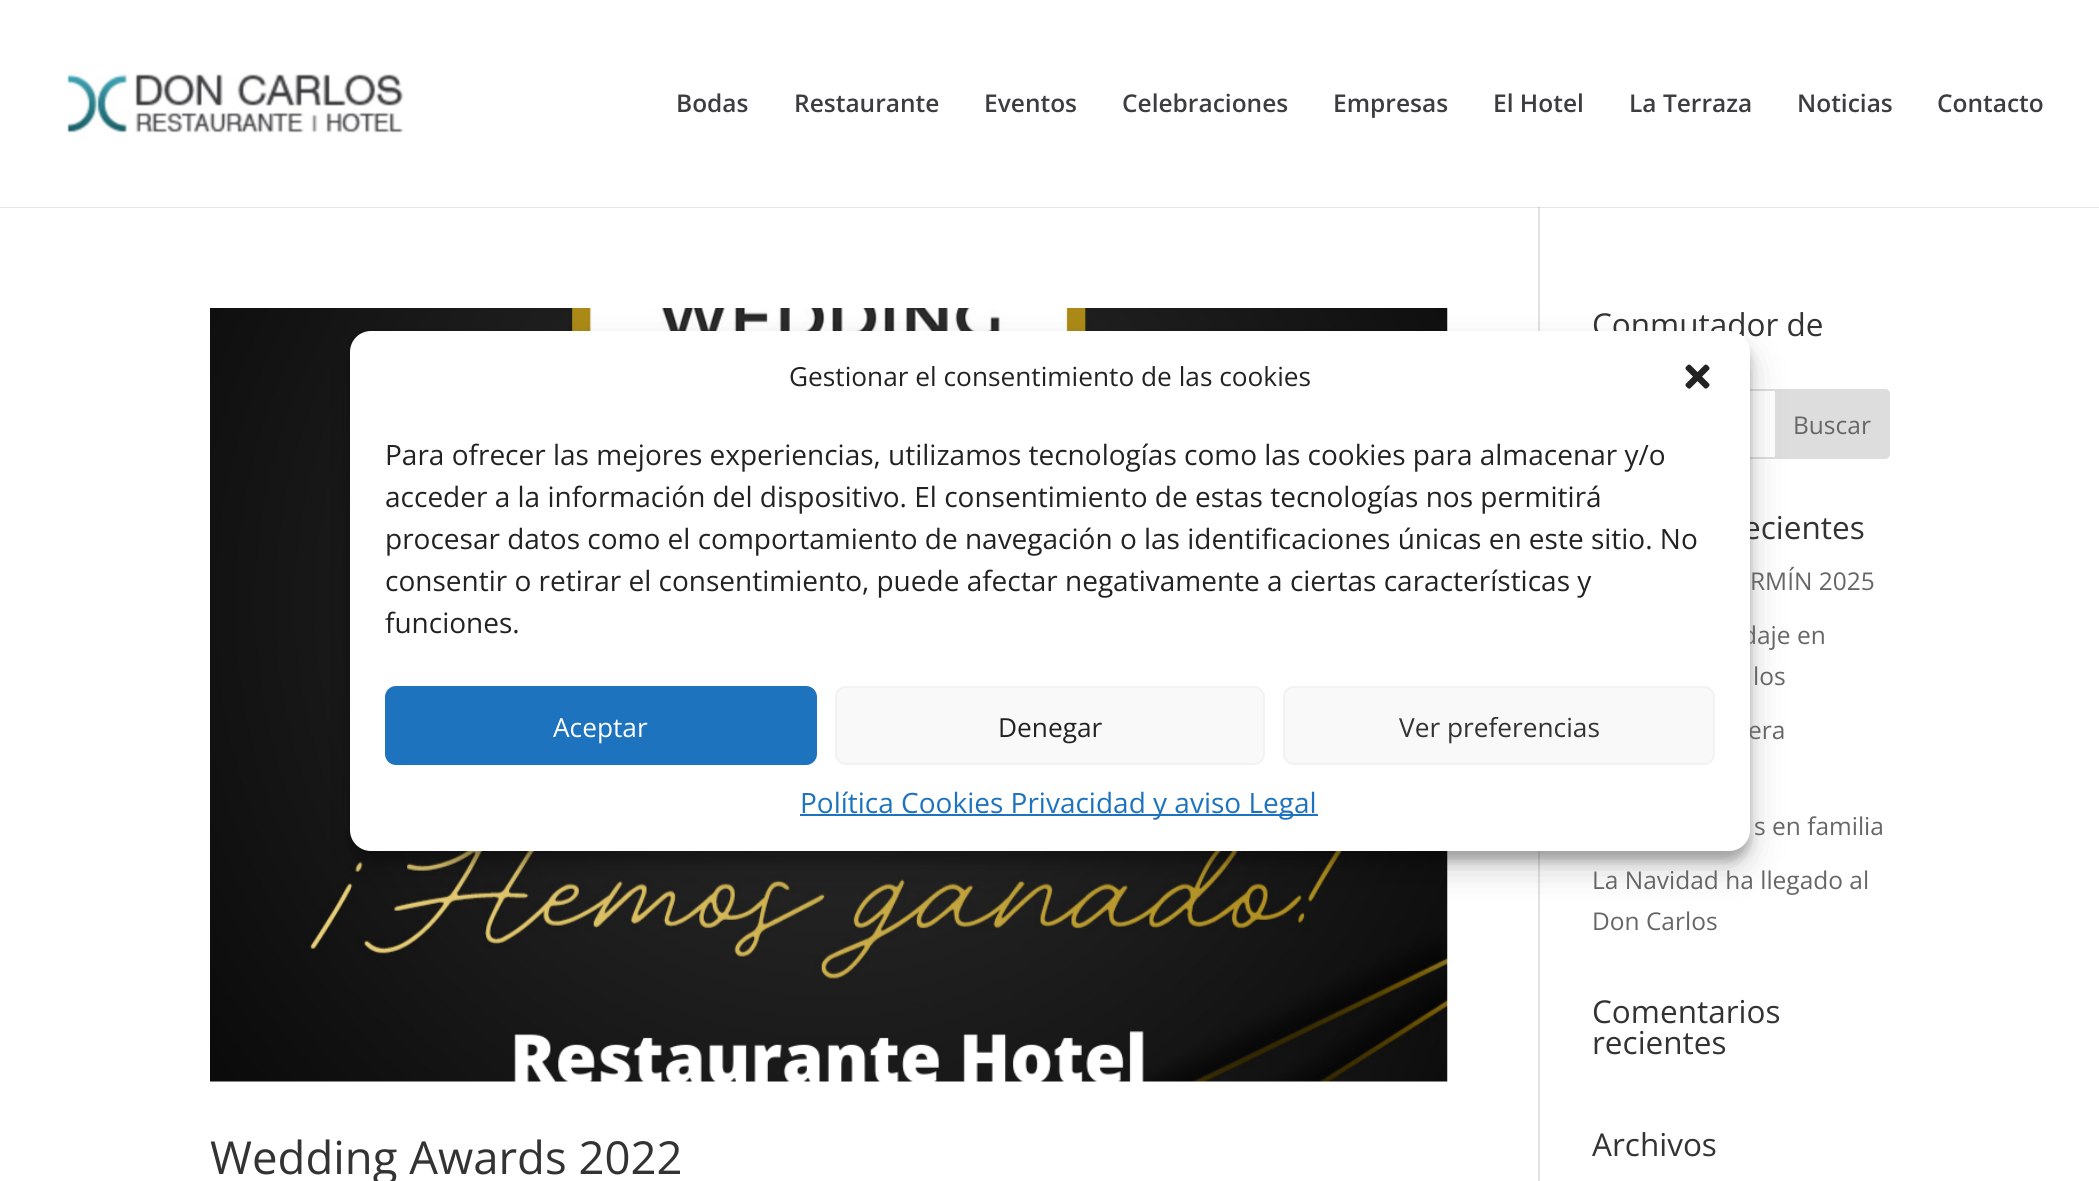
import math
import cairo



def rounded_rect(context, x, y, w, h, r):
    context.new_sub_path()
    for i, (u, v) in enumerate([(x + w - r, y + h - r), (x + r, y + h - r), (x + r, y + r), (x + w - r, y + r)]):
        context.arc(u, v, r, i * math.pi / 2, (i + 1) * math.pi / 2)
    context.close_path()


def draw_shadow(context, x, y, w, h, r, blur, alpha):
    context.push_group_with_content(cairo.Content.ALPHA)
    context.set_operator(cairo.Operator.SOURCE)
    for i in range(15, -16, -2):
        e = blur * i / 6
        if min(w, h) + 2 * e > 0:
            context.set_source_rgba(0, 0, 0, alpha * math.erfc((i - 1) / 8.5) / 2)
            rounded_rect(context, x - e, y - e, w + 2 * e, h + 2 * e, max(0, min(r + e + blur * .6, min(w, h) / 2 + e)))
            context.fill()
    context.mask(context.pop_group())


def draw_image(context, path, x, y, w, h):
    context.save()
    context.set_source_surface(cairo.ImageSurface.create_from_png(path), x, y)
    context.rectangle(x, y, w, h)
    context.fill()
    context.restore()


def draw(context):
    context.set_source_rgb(1, 1, 1)
    context.paint()
    context.set_source_rgb(230 / 255, 230 / 255, 230 / 255)
    context.rectangle(0, 207, 2099, 1)
    context.fill()
    draw_image(context, "images/1.png", 67, 74, 337, 59)
    context.set_source_rgb(226 / 255, 226 / 255, 226 / 255)
    context.rectangle(1538, 207, 2, 974)
    context.fill()
    context.set_source_rgb(203 / 255, 203 / 255, 203 / 255)
    context.rectangle(1538, 207, 2, 1)
    context.fill()
    draw_image(context, "images/2.png", 210, 308, 1238, 774)
    rounded_rect(context, 1594, 390, 295, 68, 4)
    context.set_source_rgb(221 / 255, 221 / 255, 221 / 255)
    context.stroke()
    context.new_path()
    context.move_to(1776, 390)
    context.line_to(1885, 390)
    context.curve_to(1887, 390, 1889, 392, 1889, 394)
    context.line_to(1889, 454)
    context.curve_to(1889, 456, 1887, 458, 1885, 458)
    context.line_to(1776, 458)
    context.close_path()
    context.fill_preserve()
    context.stroke()
    context.set_source_rgb(0, 0, 0)
    draw_shadow(context, 350, 341, 1400, 520, 21, 5, 0.23)
    draw_shadow(context, 350, 348, 1400, 520, 21, 17.5, 0.19)
    context.select_font_face("Open Sans SemiBold")
    context.set_font_size(24.5)
    context.set_source_rgb(61 / 255, 60 / 255, 63 / 255)
    context.move_to(676, 112)
    context.show_text("Bodas")
    context.move_to(794, 112)
    context.show_text("Restaurante")
    context.move_to(984, 112)
    context.show_text("Eventos")
    context.move_to(1122, 112)
    context.show_text("Celebraciones")
    context.move_to(1333, 112)
    context.show_text("Empresas")
    context.move_to(1493, 112)
    context.show_text("El Hotel")
    context.move_to(1629, 112)
    context.show_text("La Terraza")
    context.move_to(1797, 112)
    context.show_text("Noticias")
    context.move_to(1937, 112)
    context.show_text("Contacto")
    context.select_font_face("Open Sans")
    context.set_font_size(45.5)
    context.set_source_rgb(51 / 255, 51 / 255, 51 / 255)
    context.move_to(210, 1174)
    context.show_text("Wedding Awards 2022")
    context.set_font_size(31.5)
    context.move_to(1592, 336)
    context.show_text("Conmutador de")
    context.set_font_size(24.5)
    context.set_source_rgb(102 / 255, 102 / 255, 102 / 255)
    context.move_to(1793, 434)
    context.show_text("Buscar")
    context.set_font_size(31.5)
    context.set_source_rgb(51 / 255, 51 / 255, 51 / 255)
    context.move_to(1743, 539)
    context.show_text("ecientes")
    context.set_font_size(24.5)
    context.set_source_rgb(102 / 255, 102 / 255, 102 / 255)
    context.move_to(1750, 590)
    context.show_text("RMÍN 2025")
    context.move_to(1742, 644)
    context.show_text("daje en")
    context.move_to(1753, 685)
    context.show_text("los")
    context.move_to(1748, 739)
    context.show_text("era")
    context.move_to(1754, 835)
    context.show_text("s en familia")
    context.move_to(1592, 889)
    context.show_text("La Navidad ha llegado al")
    context.move_to(1592, 930)
    context.show_text("Don Carlos")
    context.set_font_size(31.5)
    context.set_source_rgb(51 / 255, 51 / 255, 51 / 255)
    context.move_to(1592, 1023)
    context.show_text("Comentarios")
    context.move_to(1592, 1054)
    context.show_text("recientes")
    context.move_to(1592, 1156)
    context.show_text("Archivos")
    context.set_source_rgb(1, 1, 1)
    rounded_rect(context, 350, 331, 1400, 520, 21)
    context.fill()
    context.set_font_size(26.25)
    context.set_source_rgb(34 / 255, 34 / 255, 34 / 255)
    context.move_to(789, 386)
    context.show_text("Gestionar el consentimiento de las cookies")
    draw_image(context, "images/3.png", 1685, 364, 25, 25)
    context.set_font_size(28)
    context.move_to(385, 465)
    context.show_text("Para ofrecer las mejores experiencias, utilizamos tecnologías como las cookies para almacenar y/o")
    context.move_to(385, 507)
    context.show_text("acceder a la información del dispositivo. El consentimiento de estas tecnologías nos permitirá")
    context.move_to(385, 549)
    context.show_text("procesar datos como el comportamiento de navegación o las identificaciones únicas en este sitio. No")
    context.move_to(385, 591)
    context.show_text("consentir o retirar el consentimiento, puede afectar negativamente a ciertas características y")
    context.move_to(385, 633)
    context.show_text("funciones.")
    context.set_source_rgb(30 / 255, 115 / 255, 190 / 255)
    rounded_rect(context, 386, 687, 430, 77, 10)
    context.fill_preserve()
    context.stroke()
    context.set_font_size(26.25)
    context.set_source_rgb(1, 1, 1)
    context.move_to(553, 737)
    context.show_text("Aceptar")
    context.set_source_rgb(249 / 255, 249 / 255, 249 / 255)
    rounded_rect(context, 836, 687, 428, 77, 10)
    context.fill_preserve()
    context.set_source_rgb(242 / 255, 242 / 255, 242 / 255)
    context.stroke()
    context.set_source_rgb(34 / 255, 34 / 255, 34 / 255)
    context.move_to(998, 737)
    context.show_text("Denegar")
    context.set_source_rgb(249 / 255, 249 / 255, 249 / 255)
    rounded_rect(context, 1284, 687, 430, 77, 10)
    context.fill_preserve()
    context.set_source_rgb(242 / 255, 242 / 255, 242 / 255)
    context.stroke()
    context.set_source_rgb(51 / 255, 51 / 255, 51 / 255)
    context.move_to(1399, 737)
    context.show_text("Ver preferencias")
    context.set_source_rgb(30 / 255, 115 / 255, 190 / 255)
    context.rectangle(800, 814, 518, 2)
    context.fill()
    context.set_font_size(28)
    context.move_to(800, 813)
    context.show_text("Política Cookies Privacidad y aviso Legal")


surface = cairo.ImageSurface(cairo.Format.RGB24, 2099, 1181)
context = cairo.Context(surface)
options = cairo.FontOptions()
options.set_hint_metrics(cairo.HintMetrics.OFF)
options.set_hint_style(cairo.HintStyle.NONE)
context.set_font_options(options)
context.set_miter_limit(4)
draw(context)
surface.write_to_png("out.png")
